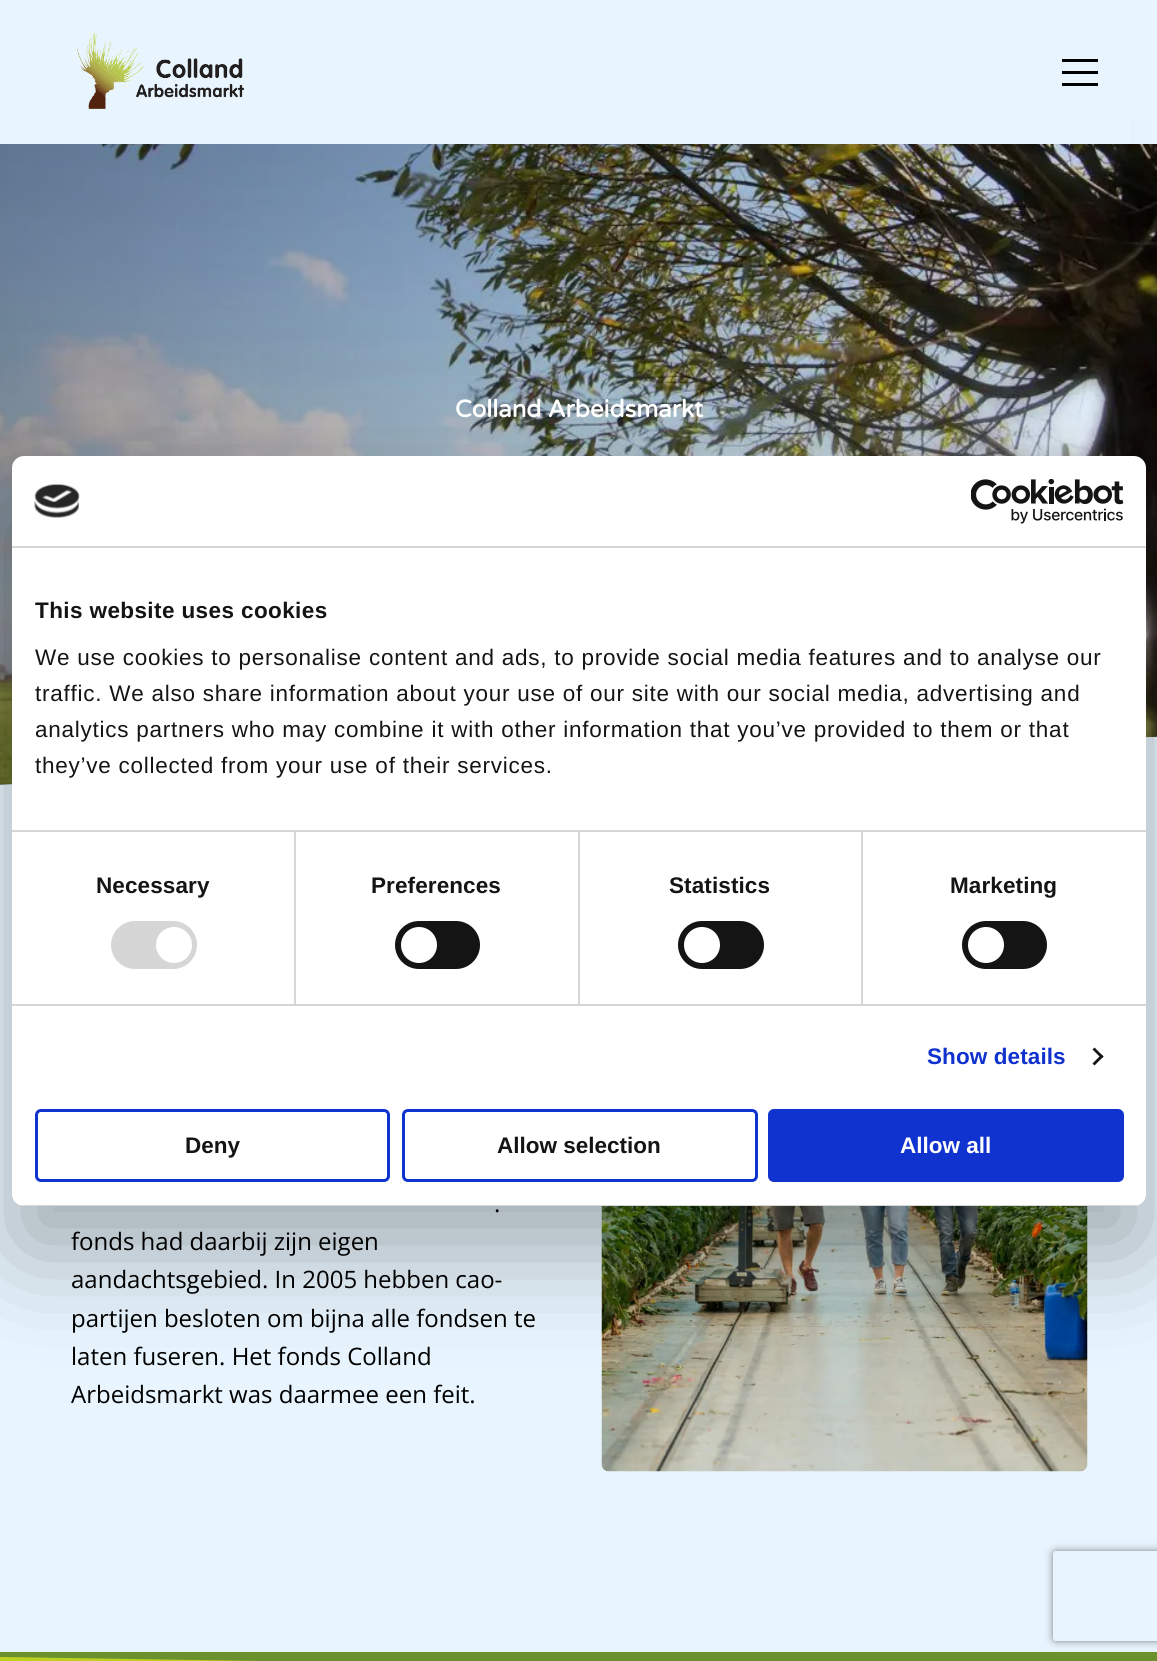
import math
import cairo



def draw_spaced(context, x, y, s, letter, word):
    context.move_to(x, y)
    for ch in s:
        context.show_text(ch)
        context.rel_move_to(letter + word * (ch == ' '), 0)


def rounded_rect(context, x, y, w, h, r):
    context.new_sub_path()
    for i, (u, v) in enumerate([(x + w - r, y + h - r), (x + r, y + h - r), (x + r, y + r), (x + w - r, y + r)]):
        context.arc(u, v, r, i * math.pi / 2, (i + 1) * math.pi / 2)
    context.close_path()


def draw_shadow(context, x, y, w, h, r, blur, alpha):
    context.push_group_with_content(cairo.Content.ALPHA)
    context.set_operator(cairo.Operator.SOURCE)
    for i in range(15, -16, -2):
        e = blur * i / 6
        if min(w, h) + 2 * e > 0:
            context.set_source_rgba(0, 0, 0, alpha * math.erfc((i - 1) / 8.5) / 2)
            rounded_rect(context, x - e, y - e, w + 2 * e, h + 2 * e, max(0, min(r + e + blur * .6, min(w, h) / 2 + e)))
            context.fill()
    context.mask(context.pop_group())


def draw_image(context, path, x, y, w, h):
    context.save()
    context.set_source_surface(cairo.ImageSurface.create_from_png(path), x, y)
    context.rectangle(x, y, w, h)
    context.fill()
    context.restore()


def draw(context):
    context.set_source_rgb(232 / 255, 245 / 255, 254 / 255)
    context.paint()
    draw_image(context, "images/2.png", 0, 144, 1157, 641)
    gradient = cairo.LinearGradient(0, 452, 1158, 452)
    gradient.add_color_stop_rgba(0, 0, 0, 0, 0.4)
    gradient.add_color_stop_rgba(1, 0, 0, 0, 0)
    context.set_source(gradient)
    context.new_path()
    context.move_to(0, 120)
    context.line_to(0, 785)
    context.line_to(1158, 737)
    context.line_to(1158, 120)
    context.close_path()
    context.fill()
    context.set_source_rgb(232 / 255, 245 / 255, 254 / 255)
    context.rectangle(0, 120, 1130, 24)
    context.fill()
    draw_image(context, "images/1.png", 76, 33, 169, 76)
    context.set_source_rgb(0, 0, 0)
    context.rectangle(1062, 59, 36, 3)
    context.fill()
    context.rectangle(1062, 71, 36, 3)
    context.fill()
    context.rectangle(1062, 83, 36, 3)
    context.fill()
    context.set_source_rgb(232 / 255, 245 / 255, 254 / 255)
    context.new_path()
    context.move_to(0, 785)
    context.line_to(0, 1652)
    context.line_to(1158, 1652)
    context.line_to(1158, 737)
    context.line_to(1153, 737)
    context.close_path()
    context.fill()
    draw_image(context, "images/3.png", 601, 1206, 487, 266)
    context.set_source_rgb(0, 0, 0)
    draw_shadow(context, 12, 504, 1134, 750, 12, 51, 0.3)
    context.set_source_rgb(1, 1, 1)
    rounded_rect(context, 12, 456, 1134, 750, 12)
    context.fill()
    context.set_source_rgb(214 / 255, 214 / 255, 214 / 255)
    context.rectangle(12, 546, 1134, 2)
    context.fill()
    draw_image(context, "images/4.png", 34, 484, 46, 34)
    draw_image(context, "images/5.png", 971, 479, 153, 45)
    context.rectangle(294, 831, 2, 173)
    context.fill()
    context.rectangle(578, 831, 2, 173)
    context.fill()
    context.rectangle(861, 831, 2, 173)
    context.fill()
    context.rectangle(12, 830, 1134, 2)
    context.fill()
    context.rectangle(12, 1004, 1134, 2)
    context.fill()
    rounded_rect(context, 111, 921, 86, 48, 24)
    context.fill()
    context.set_source_rgb(1, 1, 1)
    context.arc(174, 945, 18, 0, 2 * math.pi)
    context.fill()
    context.set_source_rgb(20 / 255, 20 / 255, 20 / 255)
    rounded_rect(context, 395, 921, 85, 48, 24)
    context.fill()
    context.set_source_rgb(1, 1, 1)
    context.arc(419, 945, 18, 0, 2 * math.pi)
    context.fill()
    context.set_source_rgb(20 / 255, 20 / 255, 20 / 255)
    rounded_rect(context, 678, 921, 86, 48, 24)
    context.fill()
    context.set_source_rgb(1, 1, 1)
    context.arc(702, 945, 18, 0, 2 * math.pi)
    context.fill()
    context.set_source_rgb(20 / 255, 20 / 255, 20 / 255)
    rounded_rect(context, 962, 921, 85, 48, 24)
    context.fill()
    context.set_source_rgb(1, 1, 1)
    context.arc(986, 945, 18, 0, 2 * math.pi)
    context.fill()
    context.set_source_rgb(20 / 255, 20 / 255, 20 / 255)
    context.new_path()
    context.move_to(1094.5, 1047.5)
    context.line_to(1103.5, 1056.5)
    context.line_to(1101.5, 1058.5)
    context.line_to(1092.5, 1049.5)
    context.close_path()
    context.fill()
    context.new_path()
    context.move_to(1101.5, 1054.5)
    context.line_to(1103.5, 1056.5)
    context.line_to(1094.5, 1065.5)
    context.line_to(1092.5, 1063.5)
    context.close_path()
    context.fill()
    context.save()
    rounded_rect(context, 12, 456, 1134, 750, 12)
    context.clip()
    context.set_source_rgb(214 / 255, 214 / 255, 214 / 255)
    context.rectangle(12, 1205, 1134, 1)
    context.fill()
    context.restore()
    rounded_rect(context, 36.5, 1110.5, 352, 70, 4.5)
    context.set_source_rgb(16 / 255, 50 / 255, 207 / 255)
    context.set_line_width(3)
    context.stroke()
    rounded_rect(context, 403.5, 1110.5, 353, 70, 4.5)
    context.stroke()
    rounded_rect(context, 769.5, 1110.5, 353, 70, 4.5)
    context.fill_preserve()
    context.stroke()
    context.set_source_rgb(106 / 255, 145 / 255, 45 / 255)
    context.new_path()
    context.move_to(0, 1652)
    context.line_to(0, 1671)
    context.line_to(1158, 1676)
    context.line_to(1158, 1652)
    context.close_path()
    context.fill()
    context.save()
    context.set_fill_rule(cairo.FillRule.EVEN_ODD)
    context.new_path()
    context.move_to(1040, 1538)
    context.line_to(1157, 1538)
    context.line_to(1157, 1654)
    context.line_to(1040, 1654)
    context.close_path()
    context.move_to(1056, 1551)
    context.line_to(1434, 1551)
    context.curve_to(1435.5, 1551, 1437, 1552.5, 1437, 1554)
    context.line_to(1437, 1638)
    context.curve_to(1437, 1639.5, 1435.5, 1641, 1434, 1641)
    context.line_to(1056, 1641)
    context.curve_to(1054.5, 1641, 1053, 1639.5, 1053, 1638)
    context.line_to(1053, 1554)
    context.curve_to(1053, 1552.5, 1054.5, 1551, 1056, 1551)
    context.close_path()
    context.clip()
    context.set_source_rgb(128 / 255, 128 / 255, 128 / 255)
    draw_shadow(context, 1053, 1551, 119, 90, 3, 4, 1)
    context.restore()
    context.set_source_rgb(191 / 255, 209 / 255, 32 / 255)
    context.new_path()
    context.move_to(0, 1657)
    context.line_to(0, 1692)
    context.line_to(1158, 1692)
    context.line_to(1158, 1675)
    context.close_path()
    context.fill()
    context.select_font_face("Varela Round", cairo.FontSlant.NORMAL, cairo.FontWeight.BOLD)
    context.set_font_size(24)
    context.set_source_rgb(1, 1, 1)
    context.move_to(455, 417)
    context.show_text("Colland Arbeidsmarkt")
    context.select_font_face("Open Sans")
    context.set_source_rgb(0, 0, 0)
    context.move_to(494, 1212)
    context.show_text(".")
    context.move_to(71, 1250)
    context.show_text("fonds had daarbij zijn eigen")
    context.move_to(71, 1288)
    context.show_text("aandachtsgebied. In 2005 hebben cao-")
    context.move_to(71, 1327)
    context.show_text("partijen besloten om bijna alle fondsen te")
    context.move_to(71, 1365)
    context.show_text("laten fuseren. Het fonds Colland")
    context.move_to(71, 1403)
    context.show_text("Arbeidsmarkt was daarmee een feit.")
    context.select_font_face("Liberation Sans", cairo.FontSlant.NORMAL, cairo.FontWeight.BOLD)
    context.set_font_size(22.5)
    context.set_source_rgb(20 / 255, 20 / 255, 20 / 255)
    draw_spaced(context, 35, 618, "This website uses cookies", 0.4, 0)
    context.select_font_face("Liberation Sans")
    draw_spaced(context, 35, 665, "We use cookies to personalise content and ads, to provide social media features and to analyse our", 0.75, 0)
    draw_spaced(context, 35, 701, "traffic. We also share information about your use of our site with our social media, advertising and", 0.75, 0)
    draw_spaced(context, 35, 737, "analytics partners who may combine it with other information that you’ve provided to them or that", 0.75, 0)
    draw_spaced(context, 35, 773, "they’ve collected from your use of their services.", 0.75, 0)
    context.select_font_face("Liberation Sans", cairo.FontSlant.NORMAL, cairo.FontWeight.BOLD)
    draw_spaced(context, 96, 893, "Necessary", 0.1, 0)
    draw_spaced(context, 371, 893, "Preferences", 0.1, 0)
    draw_spaced(context, 669, 893, "Statistics", 0.1, 0)
    draw_spaced(context, 950, 893, "Marketing", 0.1, 0)
    context.set_source_rgb(16 / 255, 50 / 255, 207 / 255)
    draw_spaced(context, 927, 1064, "Show details", 0.1, 0)
    context.set_source_rgb(20 / 255, 20 / 255, 20 / 255)
    context.move_to(185, 1153)
    context.show_text("Deny")
    context.move_to(497, 1153)
    context.show_text("Allow selection")
    context.set_source_rgb(1, 1, 1)
    context.move_to(900, 1153)
    context.show_text("Allow all")


surface = cairo.ImageSurface(cairo.Format.RGB24, 1157, 1661)
context = cairo.Context(surface)
options = cairo.FontOptions()
options.set_hint_metrics(cairo.HintMetrics.OFF)
options.set_hint_style(cairo.HintStyle.NONE)
context.set_font_options(options)
context.set_miter_limit(4)
draw(context)
surface.write_to_png("out.png")
